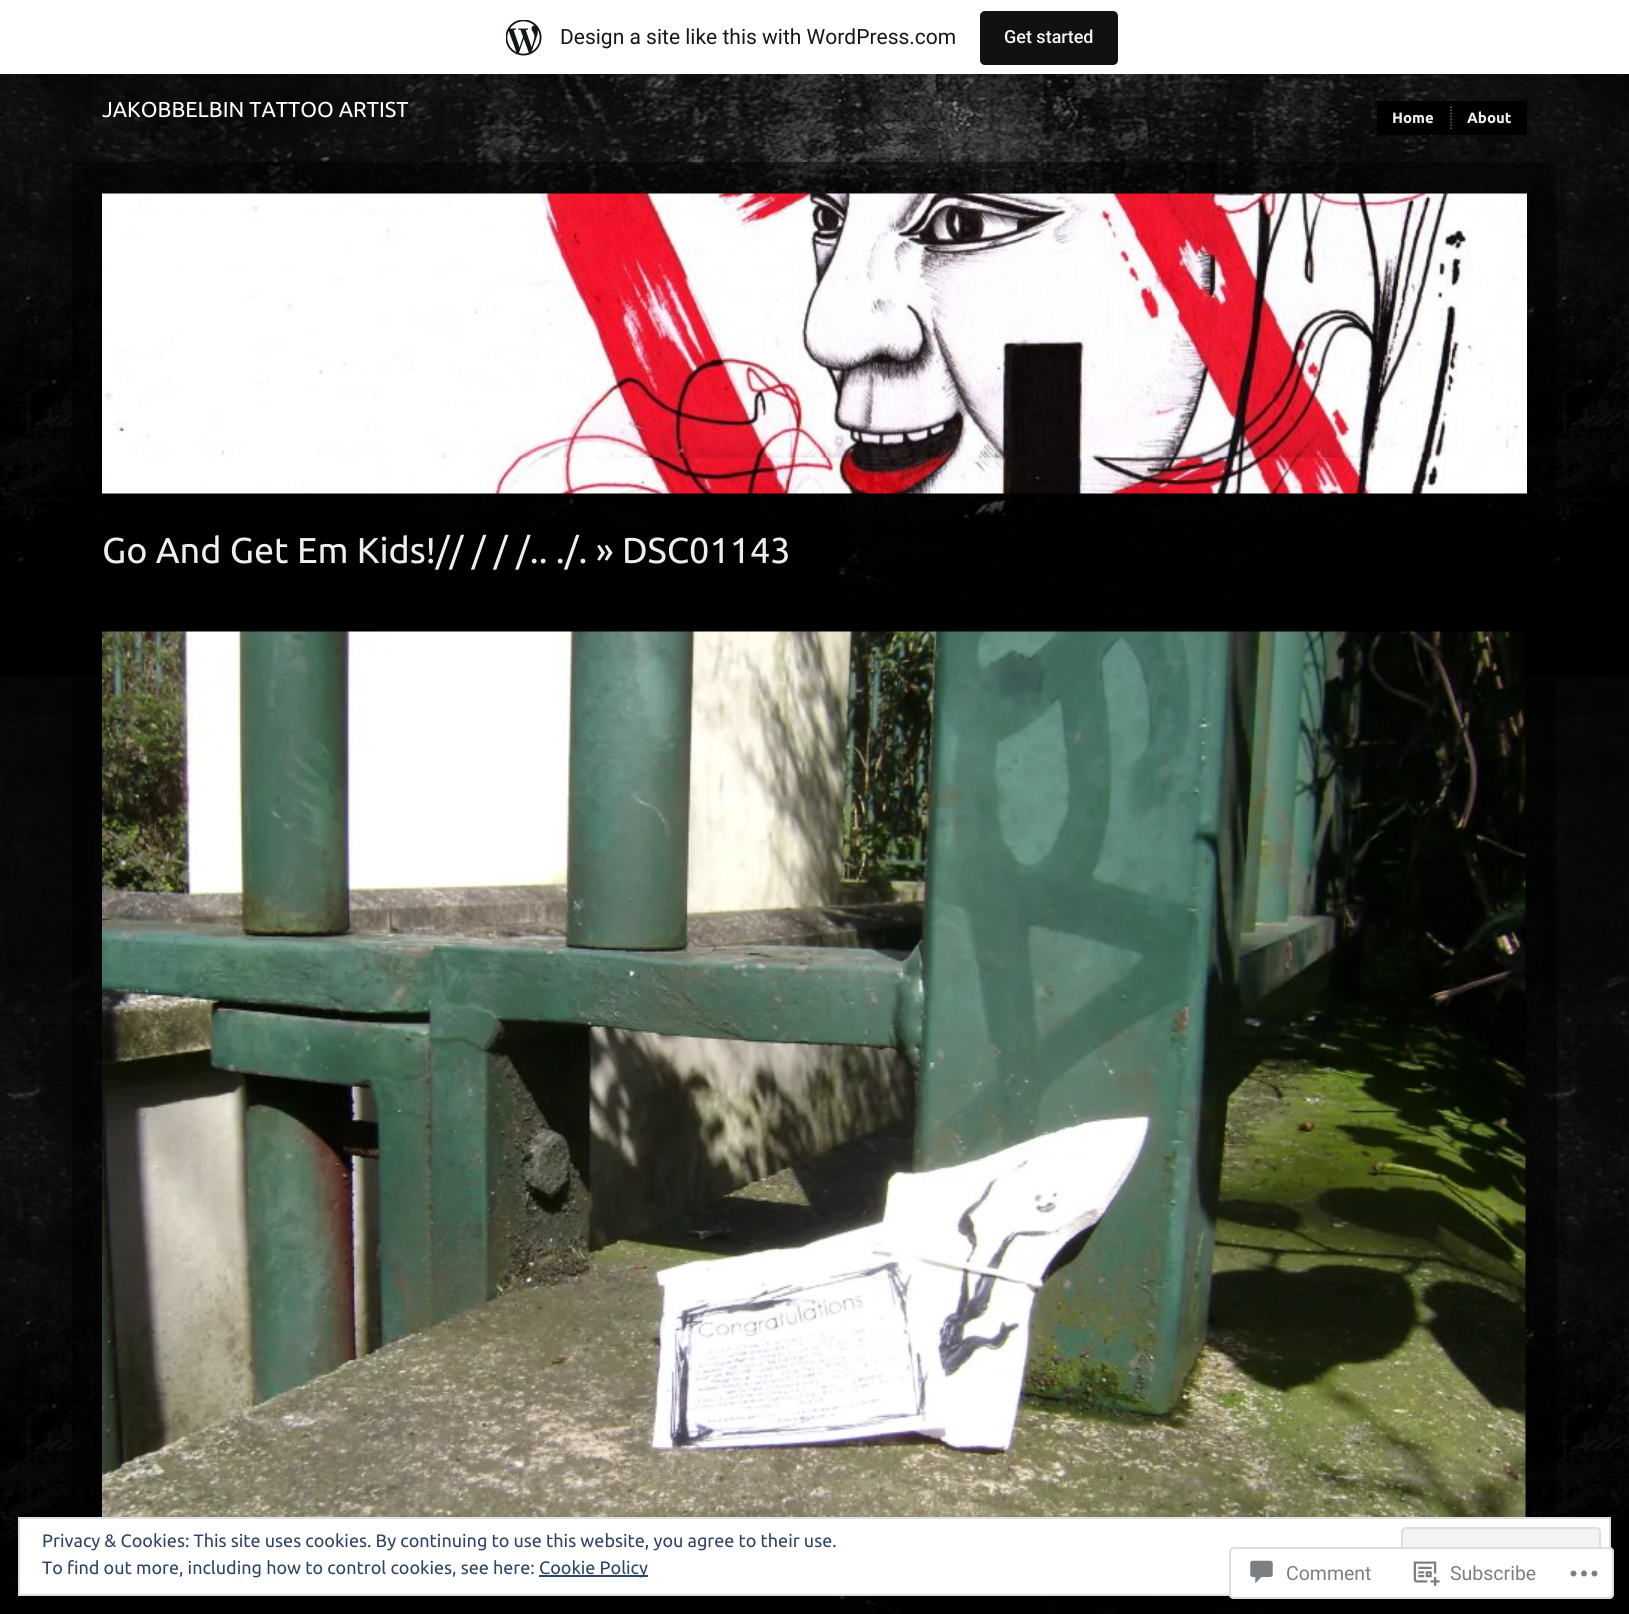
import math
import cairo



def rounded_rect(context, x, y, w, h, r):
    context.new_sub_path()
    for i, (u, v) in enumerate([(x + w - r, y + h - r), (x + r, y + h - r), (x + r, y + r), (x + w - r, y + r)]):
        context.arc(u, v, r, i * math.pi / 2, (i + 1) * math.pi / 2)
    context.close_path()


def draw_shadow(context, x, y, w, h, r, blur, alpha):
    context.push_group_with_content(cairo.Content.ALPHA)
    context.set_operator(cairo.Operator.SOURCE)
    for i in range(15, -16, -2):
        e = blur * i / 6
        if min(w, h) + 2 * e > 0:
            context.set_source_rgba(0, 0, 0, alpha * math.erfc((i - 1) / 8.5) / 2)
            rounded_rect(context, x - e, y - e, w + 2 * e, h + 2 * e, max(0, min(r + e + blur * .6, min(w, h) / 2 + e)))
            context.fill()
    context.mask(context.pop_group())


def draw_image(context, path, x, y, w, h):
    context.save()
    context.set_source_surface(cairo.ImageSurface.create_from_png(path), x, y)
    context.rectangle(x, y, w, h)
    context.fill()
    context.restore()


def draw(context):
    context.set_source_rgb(1, 1, 1)
    context.paint()
    draw_image(context, "images/1.png", 0, 74, 1629, 1540)
    context.set_source_rgba(0, 0, 0, 0.5)
    context.rectangle(72, 162, 1485, 1446)
    context.fill()
    context.set_source_rgb(0, 0, 0)
    draw_shadow(context, 0, 2, 1629, 73, 0, 1.5, 0.05)
    context.set_source_rgba(0, 0, 0, 0.08)
    context.new_path()
    context.move_to(2, 74)
    context.line_to(2, 78)
    context.line_to(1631, 78)
    context.line_to(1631, 5)
    context.line_to(1629, 5)
    context.line_to(1629, 74)
    context.close_path()
    context.fill()
    context.set_source_rgb(1, 1, 1)
    context.rectangle(0, 1, 1629, 73)
    context.fill()
    draw_image(context, "images/2.png", 506, 20, 36, 36)
    context.set_source_rgb(17 / 255, 17 / 255, 17 / 255)
    rounded_rect(context, 980, 11, 138, 54, 5)
    context.fill()
    draw_image(context, "images/3.png", 102, 193, 1425, 301)
    draw_image(context, "images/4.png", 102, 631, 1424, 886)
    context.set_source_rgb(1, 1, 1)
    context.rectangle(19, 1518, 1591, 77)
    context.fill_preserve()
    context.set_source_rgb(222 / 255, 222 / 255, 222 / 255)
    context.stroke()
    context.set_source_rgb(243 / 255, 243 / 255, 243 / 255)
    rounded_rect(context, 1402, 1528, 198, 57, 4)
    context.fill_preserve()
    context.set_source_rgb(222 / 255, 222 / 255, 222 / 255)
    context.stroke()
    context.set_source_rgba(1, 1, 1, 0.98)
    rounded_rect(context, 1229, 1547, 385, 52, 5)
    context.fill()
    rounded_rect(context, 1230, 1548, 383, 50, 4)
    context.set_source_rgba(220 / 255, 220 / 255, 222 / 255, 0.98)
    context.stroke()
    draw_image(context, "images/5.png", 1250, 1560, 23, 24)
    draw_image(context, "images/6.png", 1413, 1561, 27, 25)
    draw_image(context, "images/7.png", 1570, 1570, 28, 7)
    context.set_source_rgb(0, 0, 0)
    context.rectangle(1377, 101, 150, 34)
    context.fill()
    context.new_path()
    context.move_to(1451, 106.5)
    context.line_to(1451, 129)
    context.set_source_rgb(102 / 255, 102 / 255, 102 / 255)
    context.set_line_width(1.5)
    context.set_dash([1.5, 1.5])
    context.stroke()
    context.set_source_rgb(46 / 255, 68 / 255, 103 / 255)
    context.rectangle(539, 1575, 109, 2)
    context.fill()
    context.select_font_face("Roboto")
    context.set_font_size(21)
    context.set_source_rgb(23 / 255, 23 / 255, 23 / 255)
    context.move_to(560, 44)
    context.show_text("Design a site like this with WordPress.com")
    context.select_font_face("Roboto Medium")
    context.set_font_size(18)
    context.set_source_rgb(246 / 255, 247 / 255, 247 / 255)
    context.move_to(1004, 43)
    context.show_text("Get started")
    context.select_font_face("Ubuntu")
    context.set_font_size(36)
    context.set_source_rgb(238 / 255, 238 / 255, 238 / 255)
    context.move_to(102, 563)
    context.show_text("Go And Get Em Kids!// / / /.. ./. » DSC01143")
    context.select_font_face("Roboto")
    context.set_font_size(19.5)
    context.set_source_rgb(123 / 255, 127 / 255, 133 / 255)
    context.move_to(1286, 1580)
    context.show_text("Comment")
    context.move_to(1450, 1580)
    context.show_text("Subscribe")
    context.select_font_face("Ubuntu")
    context.set_font_size(21.6)
    context.set_source_rgb(1, 1, 1)
    context.move_to(102, 117)
    context.show_text("JAKOBBELBIN TATTOO ARTIST")
    context.select_font_face("Ubuntu", cairo.FontSlant.NORMAL, cairo.FontWeight.BOLD)
    context.set_font_size(15)
    context.set_source_rgb(238 / 255, 238 / 255, 238 / 255)
    context.move_to(1392, 123)
    context.show_text("Home")
    context.move_to(1467, 123)
    context.show_text("About")
    context.select_font_face("Ubuntu")
    context.set_font_size(18)
    context.set_source_rgb(46 / 255, 68 / 255, 103 / 255)
    context.move_to(42, 1547)
    context.show_text("Privacy & Cookies: This site uses cookies. By continuing to use this website, you agree to their use.")
    context.move_to(42, 1574)
    context.show_text("To find out more, including how to control cookies, see here:")
    context.move_to(539, 1574)
    context.show_text("Cookie Policy")


surface = cairo.ImageSurface(cairo.Format.RGB24, 1629, 1614)
context = cairo.Context(surface)
options = cairo.FontOptions()
options.set_hint_metrics(cairo.HintMetrics.OFF)
options.set_hint_style(cairo.HintStyle.NONE)
context.set_font_options(options)
context.set_miter_limit(4)
draw(context)
surface.write_to_png("out.png")
